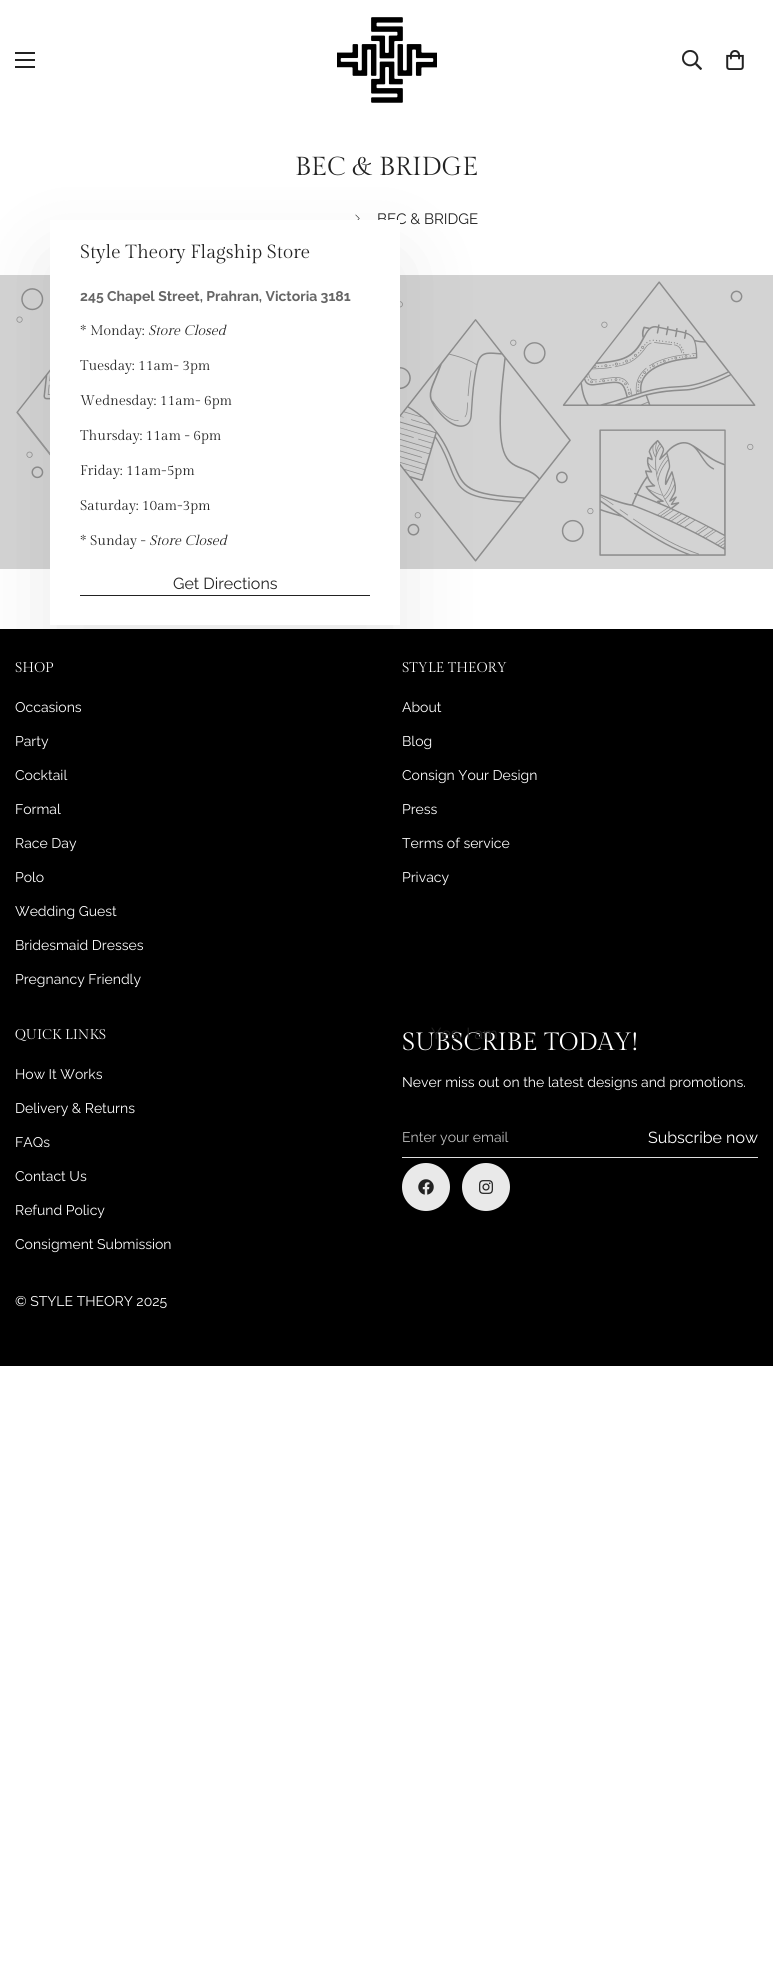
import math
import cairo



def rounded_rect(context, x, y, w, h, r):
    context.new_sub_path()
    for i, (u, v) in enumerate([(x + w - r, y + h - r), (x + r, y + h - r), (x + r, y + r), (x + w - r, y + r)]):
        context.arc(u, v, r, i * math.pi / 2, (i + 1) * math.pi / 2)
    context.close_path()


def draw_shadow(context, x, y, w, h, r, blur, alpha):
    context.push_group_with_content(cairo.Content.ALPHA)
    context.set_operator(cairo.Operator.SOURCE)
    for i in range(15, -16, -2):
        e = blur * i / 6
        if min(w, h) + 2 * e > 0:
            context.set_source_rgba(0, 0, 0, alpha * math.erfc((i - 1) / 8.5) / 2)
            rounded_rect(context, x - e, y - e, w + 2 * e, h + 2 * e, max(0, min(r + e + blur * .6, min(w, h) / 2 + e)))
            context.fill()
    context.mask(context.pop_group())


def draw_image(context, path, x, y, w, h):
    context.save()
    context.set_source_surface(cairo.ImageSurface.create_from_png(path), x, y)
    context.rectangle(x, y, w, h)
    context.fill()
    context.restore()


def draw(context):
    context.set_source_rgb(1, 1, 1)
    context.paint()
    context.set_source_rgb(34 / 255, 34 / 255, 34 / 255)
    context.rectangle(15, 59, 20, 2)
    context.fill()
    context.rectangle(15, 52, 20, 2)
    context.fill()
    context.rectangle(15, 66, 20, 2)
    context.fill()
    draw_image(context, "images/1.png", 337, 17, 100, 86)
    draw_image(context, "images/2.png", 682, 50, 20, 20)
    draw_image(context, "images/3.png", 726, 50, 18, 20)
    draw_image(context, "images/4.png", 355, 214, 5, 6)
    context.set_source_rgb(211 / 255, 211 / 255, 211 / 255)
    context.rectangle(0, 275, 773, 294)
    context.fill()
    draw_image(context, "images/5.png", 16, 281, 740, 281)
    context.set_source_rgb(34 / 255, 34 / 255, 34 / 255)
    draw_shadow(context, 50, 260, 350, 405, 0, 40, 0.1)
    context.set_source_rgb(0, 0, 0)
    context.rectangle(0, 629, 773, 737)
    context.fill()
    context.set_source_rgb(222 / 255, 222 / 255, 222 / 255)
    context.rectangle(402, 1157, 356, 1)
    context.fill()
    context.set_source_rgb(233 / 255, 233 / 255, 233 / 255)
    context.arc(426, 1187, 24, 0, 2 * math.pi)
    context.fill()
    draw_image(context, "images/6.png", 418, 1179, 16, 16)
    context.arc(486, 1187, 24, 0, 2 * math.pi)
    context.fill()
    draw_image(context, "images/7.png", 479, 1180, 14, 14)
    context.select_font_face("Gilda Display")
    context.set_font_size(26)
    context.set_source_rgb(34 / 255, 34 / 255, 34 / 255)
    context.move_to(295, 175)
    context.show_text("BEC & BRIDGE")
    context.select_font_face("Raleway")
    context.set_font_size(15)
    context.move_to(377, 224)
    context.show_text("BEC & BRIDGE")
    context.set_source_rgb(1, 1, 1)
    context.rectangle(50, 220, 350, 405)
    context.fill()
    context.select_font_face("Gilda Display")
    context.set_font_size(19)
    context.set_source_rgb(34 / 255, 34 / 255, 34 / 255)
    context.move_to(80, 258)
    context.show_text("Style Theory Flagship Store")
    context.select_font_face("Raleway", cairo.FontSlant.NORMAL, cairo.FontWeight.BOLD)
    context.set_font_size(14)
    context.set_source_rgb(102 / 255, 102 / 255, 102 / 255)
    context.move_to(80, 301)
    context.show_text("245 Chapel Street, Prahran, Victoria 3181")
    context.select_font_face("Gilda Display")
    context.set_source_rgb(34 / 255, 34 / 255, 34 / 255)
    context.move_to(80, 335)
    context.show_text("* Monday:")
    context.select_font_face("Gilda Display", cairo.FontSlant.ITALIC)
    context.move_to(148, 335)
    context.show_text("Store Closed")
    context.select_font_face("Gilda Display")
    context.move_to(80, 370)
    context.show_text("Tuesday: 11am- 3pm")
    context.move_to(80, 405)
    context.show_text("Wednesday: 11am- 6pm")
    context.move_to(80, 440)
    context.show_text("Thursday: 11am - 6pm")
    context.move_to(80, 475)
    context.show_text("Friday: 11am-5pm")
    context.move_to(80, 510)
    context.show_text("Saturday: 10am-3pm")
    context.move_to(80, 545)
    context.show_text("* Sunday -")
    context.select_font_face("Gilda Display", cairo.FontSlant.ITALIC)
    context.move_to(149, 545)
    context.show_text("Store Closed")
    context.select_font_face("Raleway")
    context.set_font_size(16)
    context.move_to(173, 589)
    context.show_text("Get Directions")
    context.rectangle(80, 595, 290, 1)
    context.fill()
    context.select_font_face("Gilda Display")
    context.set_font_size(14)
    context.set_source_rgb(1, 1, 1)
    context.move_to(15, 672)
    context.show_text("SHOP")
    context.select_font_face("Raleway")
    context.move_to(15, 712)
    context.show_text("Occasions")
    context.move_to(15, 746)
    context.show_text("Party")
    context.move_to(15, 780)
    context.show_text("Cocktail")
    context.move_to(15, 814)
    context.show_text("Formal")
    context.move_to(15, 848)
    context.show_text("Race Day")
    context.move_to(15, 882)
    context.show_text("Polo")
    context.move_to(15, 916)
    context.show_text("Wedding Guest")
    context.move_to(15, 950)
    context.show_text("Bridesmaid Dresses")
    context.move_to(15, 984)
    context.show_text("Pregnancy Friendly")
    context.select_font_face("Gilda Display")
    context.move_to(402, 672)
    context.show_text("STYLE THEORY")
    context.select_font_face("Raleway")
    context.move_to(402, 712)
    context.show_text("About")
    context.move_to(402, 746)
    context.show_text("Blog")
    context.move_to(402, 780)
    context.show_text("Consign Your Design")
    context.move_to(402, 814)
    context.show_text("Press")
    context.move_to(402, 848)
    context.show_text("Terms of service")
    context.move_to(402, 882)
    context.show_text("Privacy")
    context.select_font_face("Gilda Display")
    context.move_to(15, 1039)
    context.show_text("QUICK LINKS")
    context.select_font_face("Raleway")
    context.move_to(15, 1079)
    context.show_text("How It Works")
    context.move_to(15, 1113)
    context.show_text("Delivery & Returns")
    context.move_to(15, 1147)
    context.show_text("FAQs")
    context.move_to(15, 1181)
    context.show_text("Contact Us")
    context.move_to(15, 1215)
    context.show_text("Refund Policy")
    context.move_to(15, 1249)
    context.show_text("Consigment Submission")
    context.select_font_face("Gilda Display")
    context.set_font_size(25)
    context.move_to(402, 1050)
    context.show_text("SUBSCRIBE TODAY!")
    context.select_font_face("Raleway")
    context.set_font_size(14)
    context.move_to(402, 1087)
    context.show_text("Never miss out on the latest designs and promotions.")
    context.set_source_rgb(191 / 255, 191 / 255, 191 / 255)
    context.move_to(402, 1142)
    context.show_text("Enter your email")
    context.set_font_size(16)
    context.set_source_rgb(1, 1, 1)
    context.move_to(648, 1143)
    context.show_text("Subscribe now")
    context.set_font_size(14)
    context.move_to(15, 1306)
    context.show_text("© STYLE THEORY 2025")
    context.set_font_size(16)
    context.set_source_rgb(34 / 255, 34 / 255, 34 / 255)
    context.move_to(431, 1039)
    context.show_text("Yes, I am")


surface = cairo.ImageSurface(cairo.Format.RGB24, 773, 1972)
context = cairo.Context(surface)
options = cairo.FontOptions()
options.set_hint_metrics(cairo.HintMetrics.OFF)
options.set_hint_style(cairo.HintStyle.NONE)
context.set_font_options(options)
context.set_miter_limit(4)
draw(context)
surface.write_to_png("out.png")
